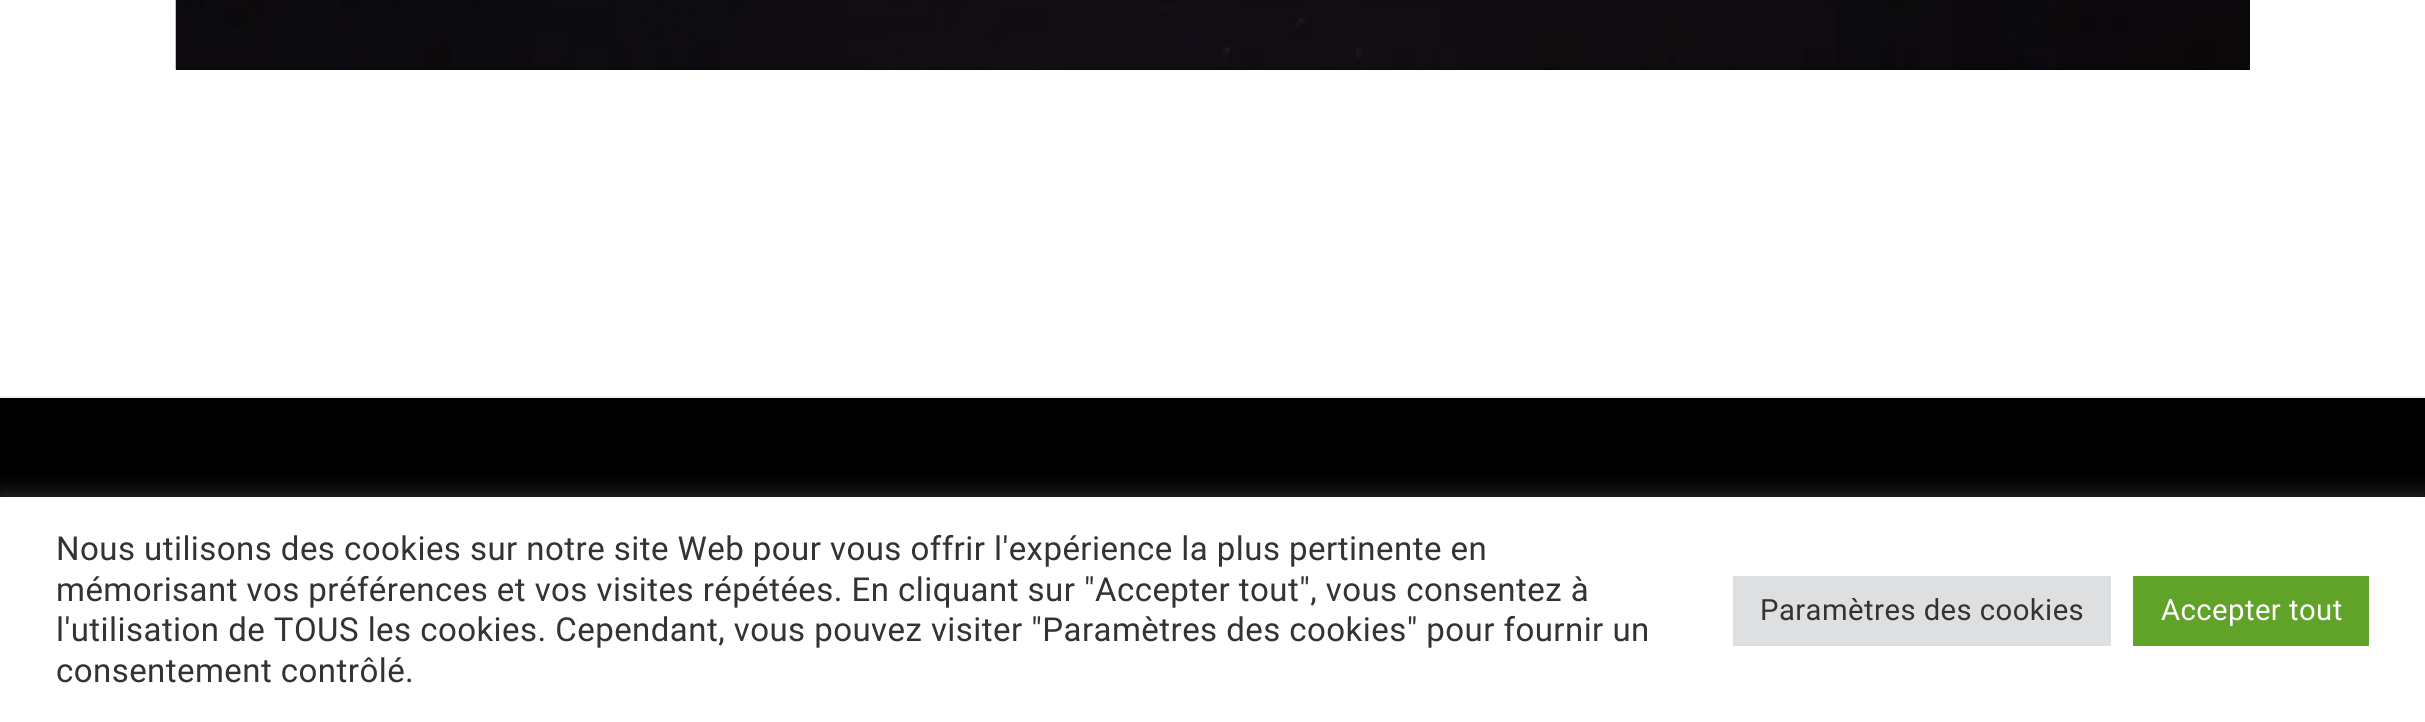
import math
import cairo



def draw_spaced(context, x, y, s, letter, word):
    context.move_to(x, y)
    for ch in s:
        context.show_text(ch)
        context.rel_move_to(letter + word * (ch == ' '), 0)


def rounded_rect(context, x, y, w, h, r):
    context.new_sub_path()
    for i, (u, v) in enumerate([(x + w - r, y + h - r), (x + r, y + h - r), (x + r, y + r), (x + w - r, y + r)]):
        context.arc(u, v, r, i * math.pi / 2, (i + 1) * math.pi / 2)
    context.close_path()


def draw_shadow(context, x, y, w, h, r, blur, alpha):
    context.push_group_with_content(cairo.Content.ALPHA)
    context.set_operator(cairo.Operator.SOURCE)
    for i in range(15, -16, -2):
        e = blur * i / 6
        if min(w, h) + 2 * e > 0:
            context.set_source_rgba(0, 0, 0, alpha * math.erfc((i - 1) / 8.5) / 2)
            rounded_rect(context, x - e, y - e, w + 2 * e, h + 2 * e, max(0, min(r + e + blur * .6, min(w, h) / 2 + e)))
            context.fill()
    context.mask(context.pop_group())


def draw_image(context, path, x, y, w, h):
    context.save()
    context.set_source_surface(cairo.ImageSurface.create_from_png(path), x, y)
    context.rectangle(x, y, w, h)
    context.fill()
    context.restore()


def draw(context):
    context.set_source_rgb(1, 1, 1)
    context.paint()
    context.set_source_rgb(0, 0, 0)
    context.rectangle(176, 69, 2074, 1)
    context.fill()
    draw_image(context, "images/1.png", 175, 0, 2075, 70)
    context.rectangle(0, 398, 2425, 99)
    context.fill()
    context.set_source_rgb(240 / 255, 240 / 255, 240 / 255)
    context.rectangle(0, 396, 2425, 2)
    context.fill()
    context.set_source_rgb(172 / 255, 171 / 255, 171 / 255)
    draw_shadow(context, 0, 495, 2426, 225, 0, 11, 0.3)
    context.set_source_rgb(1, 1, 1)
    context.rectangle(0, 497, 2425, 225)
    context.fill()
    context.set_source_rgb(222 / 255, 223 / 255, 224 / 255)
    context.rectangle(1733, 576, 378, 70)
    context.fill()
    context.set_source_rgb(97 / 255, 162 / 255, 41 / 255)
    context.rectangle(2133, 576, 236, 70)
    context.fill()
    context.select_font_face("Roboto")
    context.set_font_size(33)
    context.set_source_rgb(51 / 255, 51 / 255, 51 / 255)
    draw_spaced(context, 56, 560, "Nous utilisons des cookies sur notre site Web pour vous offrir l'expérience la plus pertinente en", 0.45, 0)
    draw_spaced(context, 56, 601, "mémorisant vos préférences et vos visites répétées. En cliquant sur \"Accepter tout\", vous consentez à", 0.45, 0)
    draw_spaced(context, 56, 641, "l'utilisation de TOUS les cookies. Cependant, vous pouvez visiter \"Paramètres des cookies\" pour fournir un", 0.45, 0)
    draw_spaced(context, 56, 682, "consentement contrôlé.", 0.45, 0)
    context.set_font_size(29.25)
    draw_spaced(context, 1760, 620, "Paramètres des cookies", 0.45, 0)
    context.set_source_rgb(1, 1, 1)
    draw_spaced(context, 2161, 620, "Accepter tout", 0.45, 0)


surface = cairo.ImageSurface(cairo.Format.RGB24, 2425, 722)
context = cairo.Context(surface)
options = cairo.FontOptions()
options.set_hint_metrics(cairo.HintMetrics.OFF)
options.set_hint_style(cairo.HintStyle.NONE)
context.set_font_options(options)
context.set_miter_limit(4)
draw(context)
surface.write_to_png("out.png")
